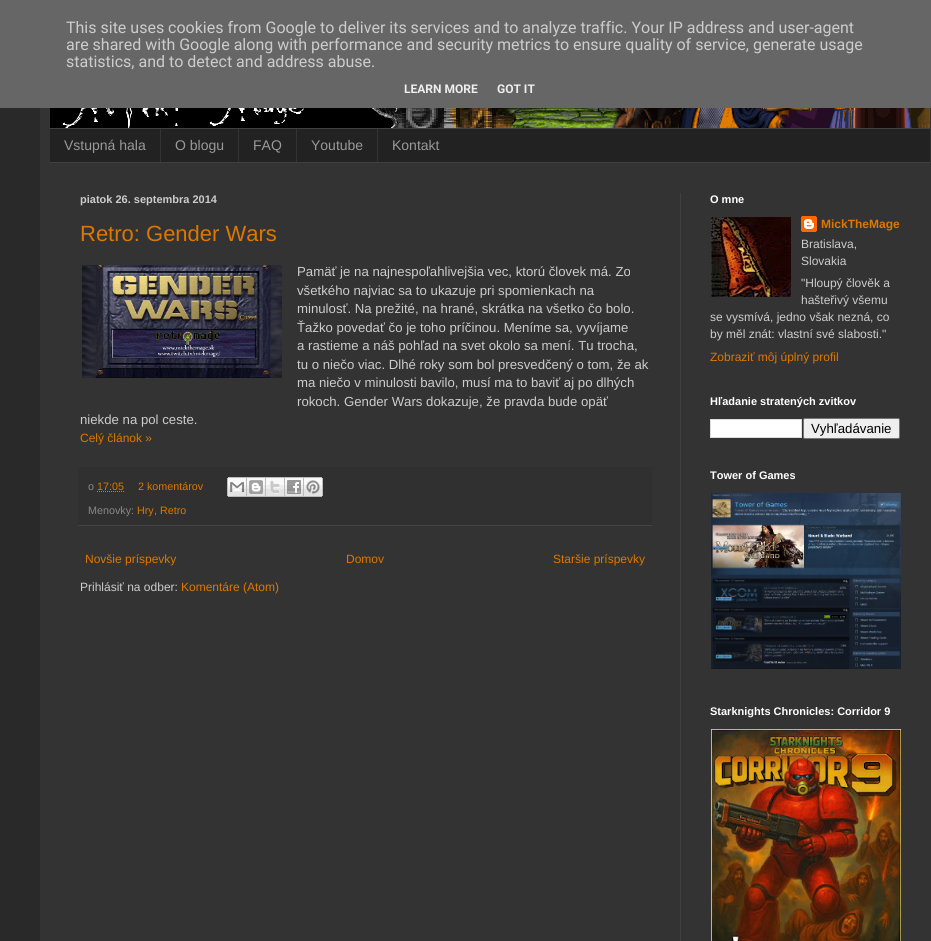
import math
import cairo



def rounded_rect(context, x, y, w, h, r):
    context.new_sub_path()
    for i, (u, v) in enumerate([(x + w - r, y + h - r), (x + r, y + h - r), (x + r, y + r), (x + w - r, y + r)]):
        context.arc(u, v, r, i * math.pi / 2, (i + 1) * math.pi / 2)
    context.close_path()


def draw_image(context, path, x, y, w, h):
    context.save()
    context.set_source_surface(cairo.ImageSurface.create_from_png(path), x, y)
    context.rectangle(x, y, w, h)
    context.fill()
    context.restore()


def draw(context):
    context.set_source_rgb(41 / 255, 41 / 255, 41 / 255)
    context.paint()
    context.set_source_rgb(102 / 255, 102 / 255, 102 / 255)
    context.rectangle(0, 0, 931, 108)
    context.fill()
    context.set_source_rgb(51 / 255, 51 / 255, 51 / 255)
    context.rectangle(40, 108, 891, 833)
    context.fill()
    draw_image(context, "images/1.png", 50, 108, 880, 20)
    context.set_source_rgb(34 / 255, 34 / 255, 34 / 255)
    context.rectangle(50, 129, 880, 33)
    context.fill()
    context.set_source_rgb(64 / 255, 64 / 255, 64 / 255)
    context.rectangle(50, 128, 880, 1)
    context.fill()
    context.rectangle(50, 162, 880, 1)
    context.fill()
    context.set_source_rgb(51 / 255, 51 / 255, 51 / 255)
    context.rectangle(160, 129, 1, 33)
    context.fill()
    context.rectangle(238, 129, 1, 33)
    context.fill()
    context.rectangle(296, 129, 1, 33)
    context.fill()
    context.rectangle(377, 129, 1, 33)
    context.fill()
    context.set_source_rgb(64 / 255, 64 / 255, 64 / 255)
    context.rectangle(680, 193, 1, 748)
    context.fill()
    draw_image(context, "images/2.png", 82, 265, 200, 113)
    context.set_source_rgb(48 / 255, 48 / 255, 48 / 255)
    context.rectangle(78, 467, 574, 58)
    context.fill()
    context.set_source_rgb(68 / 255, 68 / 255, 68 / 255)
    context.rectangle(78, 525, 574, 1)
    context.fill()
    context.new_path()
    context.move_to(97, 491.5)
    context.line_to(124, 491.5)
    context.set_source_rgb(221 / 255, 119 / 255, 0)
    context.set_line_width(1)
    context.set_dash([1, 1])
    context.stroke()
    draw_image(context, "images/3.png", 227, 477, 20, 20)
    draw_image(context, "images/4.png", 247, 477, 19, 20)
    draw_image(context, "images/5.png", 266, 477, 19, 20)
    draw_image(context, "images/6.png", 285, 477, 19, 20)
    draw_image(context, "images/7.png", 304, 477, 19, 20)
    draw_image(context, "images/8.png", 711, 217, 80, 80)
    draw_image(context, "images/9.png", 801, 216, 16, 16)
    context.set_source_rgb(1, 1, 1)
    context.rectangle(710.5, 419.5, 91, 18)
    context.fill_preserve()
    context.set_source_rgb(221 / 255, 221 / 255, 221 / 255)
    context.set_dash([])
    context.stroke()
    context.set_source_rgb(239 / 255, 239 / 255, 239 / 255)
    rounded_rect(context, 803.5, 418.5, 96, 20, 1.5)
    context.fill_preserve()
    context.set_source_rgb(118 / 255, 118 / 255, 118 / 255)
    context.stroke()
    draw_image(context, "images/10.png", 711, 493, 190, 176)
    draw_image(context, "images/11.png", 711, 729, 190, 212)
    context.select_font_face("Roboto")
    context.set_font_size(16)
    context.set_source_rgb(204 / 255, 204 / 255, 204 / 255)
    context.move_to(66, 33)
    context.show_text("This site uses cookies from Google to deliver its services and to analyze traffic. Your IP address and user-agent")
    context.move_to(66, 50)
    context.show_text("are shared with Google along with performance and security metrics to ensure quality of service, generate usage")
    context.move_to(66, 67)
    context.show_text("statistics, and to detect and address abuse.")
    context.select_font_face("Roboto", cairo.FontSlant.NORMAL, cairo.FontWeight.BOLD)
    context.set_font_size(12)
    context.set_source_rgb(238 / 255, 238 / 255, 238 / 255)
    context.move_to(404, 93)
    context.show_text("LEARN MORE")
    context.move_to(497, 93)
    context.show_text("GOT IT")
    context.select_font_face("Liberation Sans")
    context.set_font_size(14)
    context.set_source_rgb(153 / 255, 153 / 255, 153 / 255)
    context.move_to(64, 150)
    context.show_text("Vstupná hala")
    context.move_to(175, 150)
    context.show_text("O blogu")
    context.move_to(253, 150)
    context.show_text("FAQ")
    context.move_to(311, 150)
    context.show_text("Youtube")
    context.move_to(392, 150)
    context.show_text("Kontakt")
    context.select_font_face("Liberation Sans", cairo.FontSlant.NORMAL, cairo.FontWeight.BOLD)
    context.set_font_size(11)
    context.set_source_rgb(204 / 255, 204 / 255, 204 / 255)
    context.move_to(80, 203)
    context.show_text("piatok 26. septembra 2014")
    context.select_font_face("Liberation Sans")
    context.set_font_size(22)
    context.set_source_rgb(221 / 255, 119 / 255, 0)
    context.move_to(80, 241)
    context.show_text("Retro: Gender Wars")
    context.set_font_size(13.2)
    context.set_source_rgb(204 / 255, 204 / 255, 204 / 255)
    context.move_to(297, 276)
    context.show_text("Pamäť je na najnespoľahlivejšia vec, ktorú človek má. Zo")
    context.move_to(297, 295)
    context.show_text("všetkého najviac sa to ukazuje pri spomienkach na")
    context.move_to(297, 313)
    context.show_text("minulosť. Na prežité, na hrané, skrátka na všetko čo bolo.")
    context.move_to(297, 332)
    context.show_text("Ťažko povedať čo je toho príčinou. Meníme sa, vyvíjame")
    context.move_to(297, 350)
    context.show_text("a rastieme a náš pohľad na svet okolo sa mení. Tu trocha,")
    context.move_to(297, 369)
    context.show_text("tu o niečo viac. Dlhé roky som bol presvedčený o tom, že ak")
    context.move_to(297, 387)
    context.show_text("ma niečo v minulosti bavilo, musí ma to baviť aj po dlhých")
    context.move_to(297, 406)
    context.show_text("rokoch. Gender Wars dokazuje, že pravda bude opäť")
    context.move_to(80, 424)
    context.show_text("niekde na pol ceste.")
    context.set_font_size(12)
    context.set_source_rgb(221 / 255, 119 / 255, 0)
    context.move_to(80, 442)
    context.show_text("Celý článok »")
    context.set_font_size(10.75)
    context.set_source_rgb(136 / 255, 136 / 255, 136 / 255)
    context.move_to(88, 490)
    context.show_text("o")
    context.set_source_rgb(221 / 255, 119 / 255, 0)
    context.move_to(97, 490)
    context.show_text("17:05")
    context.move_to(138, 490)
    context.show_text("2 komentárov")
    context.set_source_rgb(136 / 255, 136 / 255, 136 / 255)
    context.move_to(88, 514)
    context.show_text("Menovky:")
    context.set_source_rgb(221 / 255, 119 / 255, 0)
    context.move_to(137, 514)
    context.show_text("Hry")
    context.set_source_rgb(136 / 255, 136 / 255, 136 / 255)
    context.move_to(154, 514)
    context.show_text(",")
    context.set_source_rgb(221 / 255, 119 / 255, 0)
    context.move_to(160, 514)
    context.show_text("Retro")
    context.set_font_size(12)
    context.move_to(85, 563)
    context.show_text("Novšie príspevky")
    context.move_to(346, 563)
    context.show_text("Domov")
    context.move_to(553, 563)
    context.show_text("Staršie príspevky")
    context.set_source_rgb(204 / 255, 204 / 255, 204 / 255)
    context.move_to(80, 591)
    context.show_text("Prihlásiť na odber:")
    context.set_source_rgb(221 / 255, 119 / 255, 0)
    context.move_to(181, 591)
    context.show_text("Komentáre (Atom)")
    context.select_font_face("Liberation Sans", cairo.FontSlant.NORMAL, cairo.FontWeight.BOLD)
    context.set_font_size(11)
    context.set_source_rgb(1, 1, 1)
    context.move_to(710, 203)
    context.show_text("O mne")
    context.set_font_size(12)
    context.set_source_rgb(221 / 255, 119 / 255, 0)
    context.move_to(821, 228)
    context.show_text("MickTheMage")
    context.select_font_face("Liberation Sans")
    context.set_source_rgb(204 / 255, 204 / 255, 204 / 255)
    context.move_to(801, 248)
    context.show_text("Bratislava,")
    context.move_to(801, 265)
    context.show_text("Slovakia")
    context.move_to(801, 287)
    context.show_text("\"Hloupý člověk a")
    context.move_to(801, 304)
    context.show_text("hašteřivý všemu")
    context.move_to(710, 321)
    context.show_text("se vysmívá, jedno však nezná, co")
    context.move_to(710, 338)
    context.show_text("by měl znát: vlastní své slabosti.\"")
    context.set_source_rgb(221 / 255, 119 / 255, 0)
    context.move_to(710, 361)
    context.show_text("Zobraziť môj úplný profil")
    context.select_font_face("Liberation Sans", cairo.FontSlant.NORMAL, cairo.FontWeight.BOLD)
    context.set_font_size(11)
    context.set_source_rgb(1, 1, 1)
    context.move_to(710, 405)
    context.show_text("Hľadanie stratených zvitkov")
    context.select_font_face("Liberation Sans")
    context.set_font_size(13.25)
    context.set_source_rgb(0, 0, 0)
    context.move_to(811, 433)
    context.show_text("Vyhľadávanie")
    context.select_font_face("Liberation Sans", cairo.FontSlant.NORMAL, cairo.FontWeight.BOLD)
    context.set_font_size(11)
    context.set_source_rgb(1, 1, 1)
    context.move_to(710, 479)
    context.show_text("Tower of Games")
    context.move_to(710, 715)
    context.show_text("Starknights Chronicles: Corridor 9")


surface = cairo.ImageSurface(cairo.Format.RGB24, 931, 941)
context = cairo.Context(surface)
options = cairo.FontOptions()
options.set_hint_metrics(cairo.HintMetrics.OFF)
options.set_hint_style(cairo.HintStyle.NONE)
context.set_font_options(options)
context.set_miter_limit(4)
draw(context)
surface.write_to_png("out.png")
